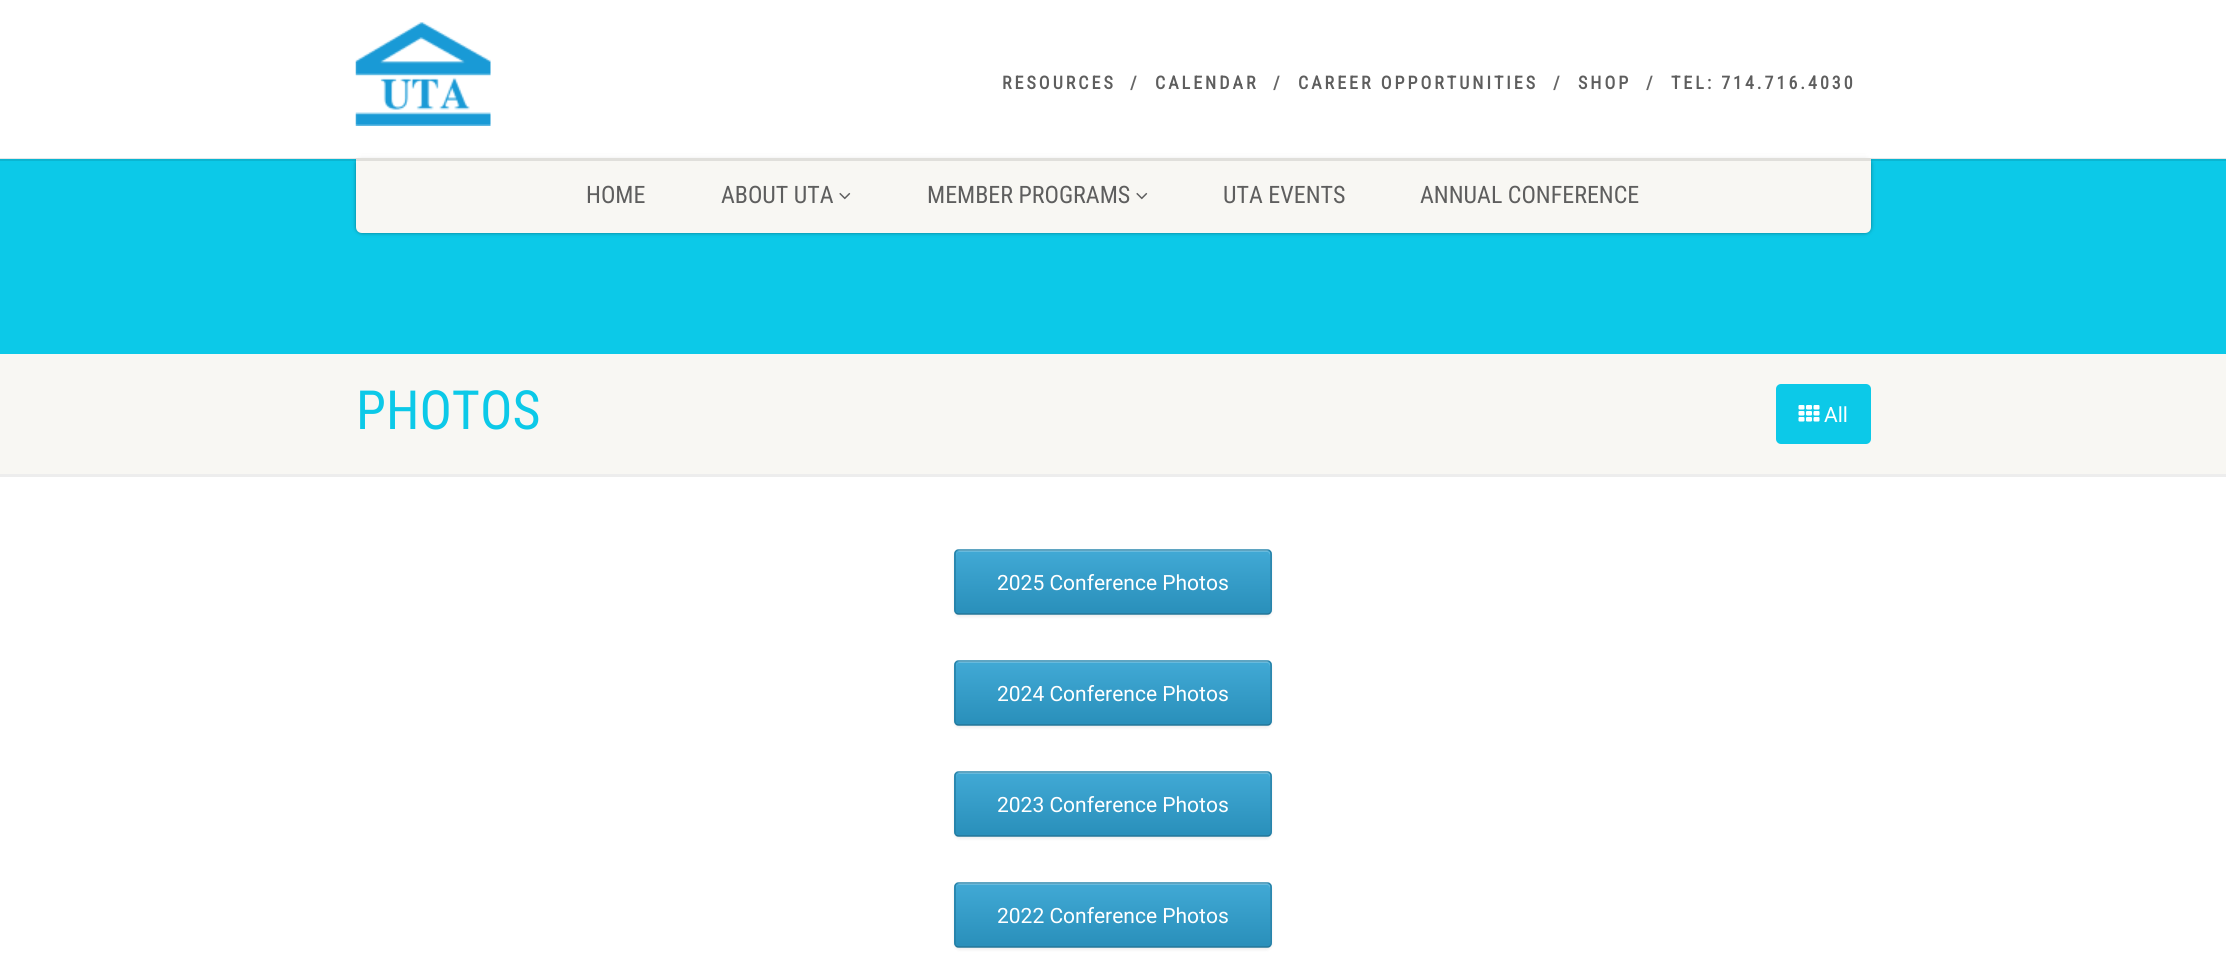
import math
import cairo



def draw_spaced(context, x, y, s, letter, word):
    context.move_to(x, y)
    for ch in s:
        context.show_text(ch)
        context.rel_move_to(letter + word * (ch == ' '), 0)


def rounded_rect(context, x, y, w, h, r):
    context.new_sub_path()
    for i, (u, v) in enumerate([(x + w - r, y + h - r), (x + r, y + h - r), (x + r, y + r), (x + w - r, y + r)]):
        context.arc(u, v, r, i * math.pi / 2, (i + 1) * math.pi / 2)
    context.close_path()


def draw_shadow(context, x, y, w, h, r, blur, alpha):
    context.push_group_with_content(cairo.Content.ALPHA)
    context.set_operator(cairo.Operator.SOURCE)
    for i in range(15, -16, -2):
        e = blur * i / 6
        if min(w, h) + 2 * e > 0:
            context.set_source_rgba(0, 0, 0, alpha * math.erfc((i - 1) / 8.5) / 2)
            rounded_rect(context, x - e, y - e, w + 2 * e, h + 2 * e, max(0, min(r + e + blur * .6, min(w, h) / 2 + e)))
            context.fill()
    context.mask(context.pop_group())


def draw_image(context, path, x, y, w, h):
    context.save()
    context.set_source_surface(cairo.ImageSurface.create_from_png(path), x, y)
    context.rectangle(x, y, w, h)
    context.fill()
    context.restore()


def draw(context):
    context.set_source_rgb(1, 1, 1)
    context.paint()
    context.set_source_rgb(12 / 255, 201 / 255, 232 / 255)
    context.rectangle(0, 159, 2226, 195)
    context.fill()
    context.set_source_rgb(0, 0, 0)
    draw_shadow(context, 356, 158, 1515, 75, 6, 2, 0.4)
    context.set_source_rgb(248 / 255, 247 / 255, 243 / 255)
    context.new_path()
    context.move_to(356, 158)
    context.line_to(1871, 158)
    context.line_to(1871, 227)
    context.curve_to(1871, 230.5, 1868.5, 233, 1865, 233)
    context.line_to(362, 233)
    context.curve_to(358.5, 233, 356, 230.5, 356, 227)
    context.close_path()
    context.fill()
    context.set_source_rgba(0, 0, 0, 0.1)
    context.rectangle(0, 158, 2226, 3)
    context.fill()
    context.set_source_rgba(1, 1, 1, 0.8)
    context.rectangle(355, 154, 1517, 4)
    context.fill()
    draw_image(context, "images/1.png", 355, 22, 136, 104)
    draw_image(context, "images/2.png", 839, 192, 12, 8)
    draw_image(context, "images/2.png", 1136, 192, 12, 8)
    context.set_source_rgb(237 / 255, 237 / 255, 237 / 255)
    context.rectangle(0, 474, 2226, 3)
    context.fill()
    context.set_source_rgb(248 / 255, 247 / 255, 243 / 255)
    context.rectangle(0, 354, 2226, 120)
    context.fill()
    context.set_source_rgb(12 / 255, 201 / 255, 232 / 255)
    rounded_rect(context, 1776, 384, 95, 60, 5)
    context.fill()
    draw_image(context, "images/3.png", 1798, 405, 22, 17)
    context.set_source_rgb(0, 0, 0)
    draw_shadow(context, 954, 551, 318, 66, 6, 1.5, 0.07)
    context.save()
    rounded_rect(context, 954, 549, 318, 66, 6)
    context.clip()
    gradient = cairo.LinearGradient(956, 614, 956, 551)
    gradient.add_color_stop_rgba(0, 41 / 255, 143 / 255, 186 / 255, 1)
    gradient.add_color_stop_rgba(1, 65 / 255, 169 / 255, 213 / 255, 1)
    context.set_source(gradient)
    context.rectangle(954, 551, 318, 63)
    context.fill()
    context.restore()
    context.set_source_rgba(1, 1, 1, 0.2)
    context.new_path()
    context.move_to(959, 552)
    context.line_to(1267, 552)
    context.curve_to(1269, 552, 1270, 554, 1270, 556)
    context.line_to(1270, 611)
    context.line_to(1270, 613)
    context.curve_to(1270, 612, 1271, 611, 1271, 610)
    context.line_to(1271, 555)
    context.curve_to(1271, 553, 1269, 551, 1267, 551)
    context.line_to(960, 551)
    context.curve_to(958, 551, 956, 553, 956, 555)
    context.line_to(956, 556)
    context.curve_to(956, 554, 957, 552, 959, 552)
    context.close_path()
    context.fill()
    context.new_path()
    context.move_to(956, 551)
    context.curve_to(957, 550, 958, 550, 959, 550)
    context.line_to(1267, 550)
    context.curve_to(1268, 550, 1269, 550, 1270, 551)
    context.set_source_rgb(38 / 255, 133 / 255, 173 / 255)
    context.set_line_width(1.5)
    context.stroke()
    context.new_path()
    context.move_to(1270, 551)
    context.curve_to(1271, 552, 1271, 553, 1271, 554)
    context.line_to(1271, 610)
    context.curve_to(1271, 611, 1271, 612, 1270, 613)
    context.set_source_rgb(36 / 255, 127 / 255, 165 / 255)
    context.stroke()
    context.new_path()
    context.move_to(1270, 613)
    context.curve_to(1269, 614, 1268, 614, 1267, 614)
    context.line_to(959, 614)
    context.curve_to(958, 614, 957, 614, 956, 613)
    context.set_source_rgb(34 / 255, 117 / 255, 152 / 255)
    context.stroke()
    context.new_path()
    context.move_to(956, 613)
    context.curve_to(955, 612, 955, 611, 955, 610)
    context.line_to(955, 554)
    context.curve_to(955, 553, 955, 552, 956, 551)
    context.set_source_rgb(36 / 255, 127 / 255, 165 / 255)
    context.stroke()
    context.set_source_rgb(0, 0, 0)
    draw_shadow(context, 954, 662, 318, 66, 6, 1.5, 0.07)
    context.save()
    rounded_rect(context, 954, 660, 318, 66, 6)
    context.clip()
    gradient = cairo.LinearGradient(956, 725, 956, 662)
    gradient.add_color_stop_rgba(0, 41 / 255, 143 / 255, 186 / 255, 1)
    gradient.add_color_stop_rgba(1, 65 / 255, 169 / 255, 213 / 255, 1)
    context.set_source(gradient)
    context.rectangle(954, 662, 318, 63)
    context.fill()
    context.restore()
    context.set_source_rgba(1, 1, 1, 0.2)
    context.new_path()
    context.move_to(959, 663)
    context.line_to(1267, 663)
    context.curve_to(1269, 663, 1270, 665, 1270, 667)
    context.line_to(1270, 722)
    context.line_to(1270, 724)
    context.curve_to(1270, 723, 1271, 722, 1271, 721)
    context.line_to(1271, 666)
    context.curve_to(1271, 664, 1269, 662, 1267, 662)
    context.line_to(960, 662)
    context.curve_to(958, 662, 956, 664, 956, 666)
    context.line_to(956, 667)
    context.curve_to(956, 665, 957, 663, 959, 663)
    context.close_path()
    context.fill()
    context.new_path()
    context.move_to(956, 662)
    context.curve_to(957, 661, 958, 661, 959, 661)
    context.line_to(1267, 661)
    context.curve_to(1268, 661, 1269, 661, 1270, 662)
    context.set_source_rgb(38 / 255, 133 / 255, 173 / 255)
    context.stroke()
    context.new_path()
    context.move_to(1270, 662)
    context.curve_to(1271, 663, 1271, 664, 1271, 665)
    context.line_to(1271, 721)
    context.curve_to(1271, 722, 1271, 723, 1270, 724)
    context.set_source_rgb(36 / 255, 127 / 255, 165 / 255)
    context.stroke()
    context.new_path()
    context.move_to(1270, 724)
    context.curve_to(1269, 725, 1268, 725, 1267, 725)
    context.line_to(959, 725)
    context.curve_to(958, 725, 957, 725, 956, 724)
    context.set_source_rgb(34 / 255, 117 / 255, 152 / 255)
    context.stroke()
    context.new_path()
    context.move_to(956, 724)
    context.curve_to(955, 723, 955, 722, 955, 721)
    context.line_to(955, 665)
    context.curve_to(955, 664, 955, 663, 956, 662)
    context.set_source_rgb(36 / 255, 127 / 255, 165 / 255)
    context.stroke()
    context.set_source_rgb(0, 0, 0)
    draw_shadow(context, 954, 773, 318, 66, 6, 1.5, 0.07)
    context.save()
    rounded_rect(context, 954, 771, 318, 66, 6)
    context.clip()
    gradient = cairo.LinearGradient(956, 836, 956, 773)
    gradient.add_color_stop_rgba(0, 41 / 255, 143 / 255, 186 / 255, 1)
    gradient.add_color_stop_rgba(1, 65 / 255, 169 / 255, 213 / 255, 1)
    context.set_source(gradient)
    context.rectangle(954, 773, 318, 63)
    context.fill()
    context.restore()
    context.set_source_rgba(1, 1, 1, 0.2)
    context.new_path()
    context.move_to(959, 774)
    context.line_to(1267, 774)
    context.curve_to(1269, 774, 1270, 776, 1270, 778)
    context.line_to(1270, 833)
    context.line_to(1270, 835)
    context.curve_to(1270, 834, 1271, 833, 1271, 832)
    context.line_to(1271, 777)
    context.curve_to(1271, 775, 1269, 773, 1267, 773)
    context.line_to(960, 773)
    context.curve_to(958, 773, 956, 775, 956, 777)
    context.line_to(956, 778)
    context.curve_to(956, 776, 957, 774, 959, 774)
    context.close_path()
    context.fill()
    context.new_path()
    context.move_to(956, 773)
    context.curve_to(957, 772, 958, 772, 959, 772)
    context.line_to(1267, 772)
    context.curve_to(1268, 772, 1269, 772, 1270, 773)
    context.set_source_rgb(38 / 255, 133 / 255, 173 / 255)
    context.stroke()
    context.new_path()
    context.move_to(1270, 773)
    context.curve_to(1271, 774, 1271, 775, 1271, 776)
    context.line_to(1271, 832)
    context.curve_to(1271, 833, 1271, 834, 1270, 835)
    context.set_source_rgb(36 / 255, 127 / 255, 165 / 255)
    context.stroke()
    context.new_path()
    context.move_to(1270, 835)
    context.curve_to(1269, 836, 1268, 836, 1267, 836)
    context.line_to(959, 836)
    context.curve_to(958, 836, 957, 836, 956, 835)
    context.set_source_rgb(34 / 255, 117 / 255, 152 / 255)
    context.stroke()
    context.new_path()
    context.move_to(956, 835)
    context.curve_to(955, 834, 955, 833, 955, 832)
    context.line_to(955, 776)
    context.curve_to(955, 775, 955, 774, 956, 773)
    context.set_source_rgb(36 / 255, 127 / 255, 165 / 255)
    context.stroke()
    context.set_source_rgb(0, 0, 0)
    draw_shadow(context, 954, 884, 318, 66, 6, 1.5, 0.07)
    context.save()
    rounded_rect(context, 954, 882, 318, 66, 6)
    context.clip()
    gradient = cairo.LinearGradient(956, 947, 956, 884)
    gradient.add_color_stop_rgba(0, 41 / 255, 143 / 255, 186 / 255, 1)
    gradient.add_color_stop_rgba(1, 65 / 255, 169 / 255, 213 / 255, 1)
    context.set_source(gradient)
    context.rectangle(954, 884, 318, 63)
    context.fill()
    context.restore()
    context.set_source_rgba(1, 1, 1, 0.2)
    context.new_path()
    context.move_to(959, 885)
    context.line_to(1267, 885)
    context.curve_to(1269, 885, 1270, 887, 1270, 889)
    context.line_to(1270, 944)
    context.line_to(1270, 946)
    context.curve_to(1270, 945, 1271, 944, 1271, 943)
    context.line_to(1271, 888)
    context.curve_to(1271, 886, 1269, 884, 1267, 884)
    context.line_to(960, 884)
    context.curve_to(958, 884, 956, 886, 956, 888)
    context.line_to(956, 889)
    context.curve_to(956, 887, 957, 885, 959, 885)
    context.close_path()
    context.fill()
    context.new_path()
    context.move_to(956, 884)
    context.curve_to(957, 883, 958, 883, 959, 883)
    context.line_to(1267, 883)
    context.curve_to(1268, 883, 1269, 883, 1270, 884)
    context.set_source_rgb(38 / 255, 133 / 255, 173 / 255)
    context.stroke()
    context.new_path()
    context.move_to(1270, 884)
    context.curve_to(1271, 885, 1271, 886, 1271, 887)
    context.line_to(1271, 943)
    context.curve_to(1271, 944, 1271, 945, 1270, 946)
    context.set_source_rgb(36 / 255, 127 / 255, 165 / 255)
    context.stroke()
    context.new_path()
    context.move_to(1270, 946)
    context.curve_to(1269, 947, 1268, 947, 1267, 947)
    context.line_to(959, 947)
    context.curve_to(958, 947, 957, 947, 956, 946)
    context.set_source_rgb(34 / 255, 117 / 255, 152 / 255)
    context.stroke()
    context.new_path()
    context.move_to(956, 946)
    context.curve_to(955, 945, 955, 944, 955, 943)
    context.line_to(955, 887)
    context.curve_to(955, 886, 955, 885, 956, 884)
    context.set_source_rgb(36 / 255, 127 / 255, 165 / 255)
    context.stroke()
    context.select_font_face("Roboto Condensed", cairo.FontSlant.NORMAL, cairo.FontWeight.BOLD)
    context.set_font_size(18)
    context.set_source_rgb(94 / 255, 94 / 255, 94 / 255)
    draw_spaced(context, 1002, 89, "RESOURCES", 3, 0)
    context.set_source_rgb(102 / 255, 102 / 255, 102 / 255)
    draw_spaced(context, 1130, 89, "/", 3, 0)
    context.set_source_rgb(94 / 255, 94 / 255, 94 / 255)
    draw_spaced(context, 1155, 89, "CALENDAR", 3, 0)
    context.set_source_rgb(102 / 255, 102 / 255, 102 / 255)
    draw_spaced(context, 1273, 89, "/", 3, 0)
    context.set_source_rgb(94 / 255, 94 / 255, 94 / 255)
    draw_spaced(context, 1298, 89, "CAREER OPPORTUNITIES", 3, 0)
    context.set_source_rgb(102 / 255, 102 / 255, 102 / 255)
    draw_spaced(context, 1553, 89, "/", 3, 0)
    context.set_source_rgb(94 / 255, 94 / 255, 94 / 255)
    draw_spaced(context, 1578, 89, "SHOP", 3, 0)
    context.set_source_rgb(102 / 255, 102 / 255, 102 / 255)
    draw_spaced(context, 1646, 89, "/", 3, 0)
    context.set_source_rgb(94 / 255, 94 / 255, 94 / 255)
    draw_spaced(context, 1671, 89, "TEL: 714.716.4030", 3, 0)
    context.select_font_face("Roboto Condensed")
    context.set_font_size(24)
    context.move_to(586, 203)
    context.show_text("HOME")
    context.move_to(721, 203)
    context.show_text("ABOUT UTA")
    context.move_to(927, 203)
    context.show_text("MEMBER PROGRAMS")
    context.move_to(1223, 203)
    context.show_text("UTA EVENTS")
    context.move_to(1420, 203)
    context.show_text("ANNUAL CONFERENCE")
    context.set_font_size(54)
    context.set_source_rgb(12 / 255, 201 / 255, 232 / 255)
    context.move_to(356, 429)
    context.show_text("PHOTOS")
    context.select_font_face("Roboto")
    context.set_font_size(21)
    context.set_source_rgb(1, 1, 1)
    context.move_to(1824, 422)
    context.show_text("All")
    context.move_to(997, 590)
    context.show_text("2025 Conference Photos")
    context.move_to(997, 701)
    context.show_text("2024 Conference Photos")
    context.move_to(997, 812)
    context.show_text("2023 Conference Photos")
    context.move_to(997, 923)
    context.show_text("2022 Conference Photos")


surface = cairo.ImageSurface(cairo.Format.RGB24, 2226, 966)
context = cairo.Context(surface)
options = cairo.FontOptions()
options.set_hint_metrics(cairo.HintMetrics.OFF)
options.set_hint_style(cairo.HintStyle.NONE)
context.set_font_options(options)
context.set_miter_limit(4)
draw(context)
surface.write_to_png("out.png")
